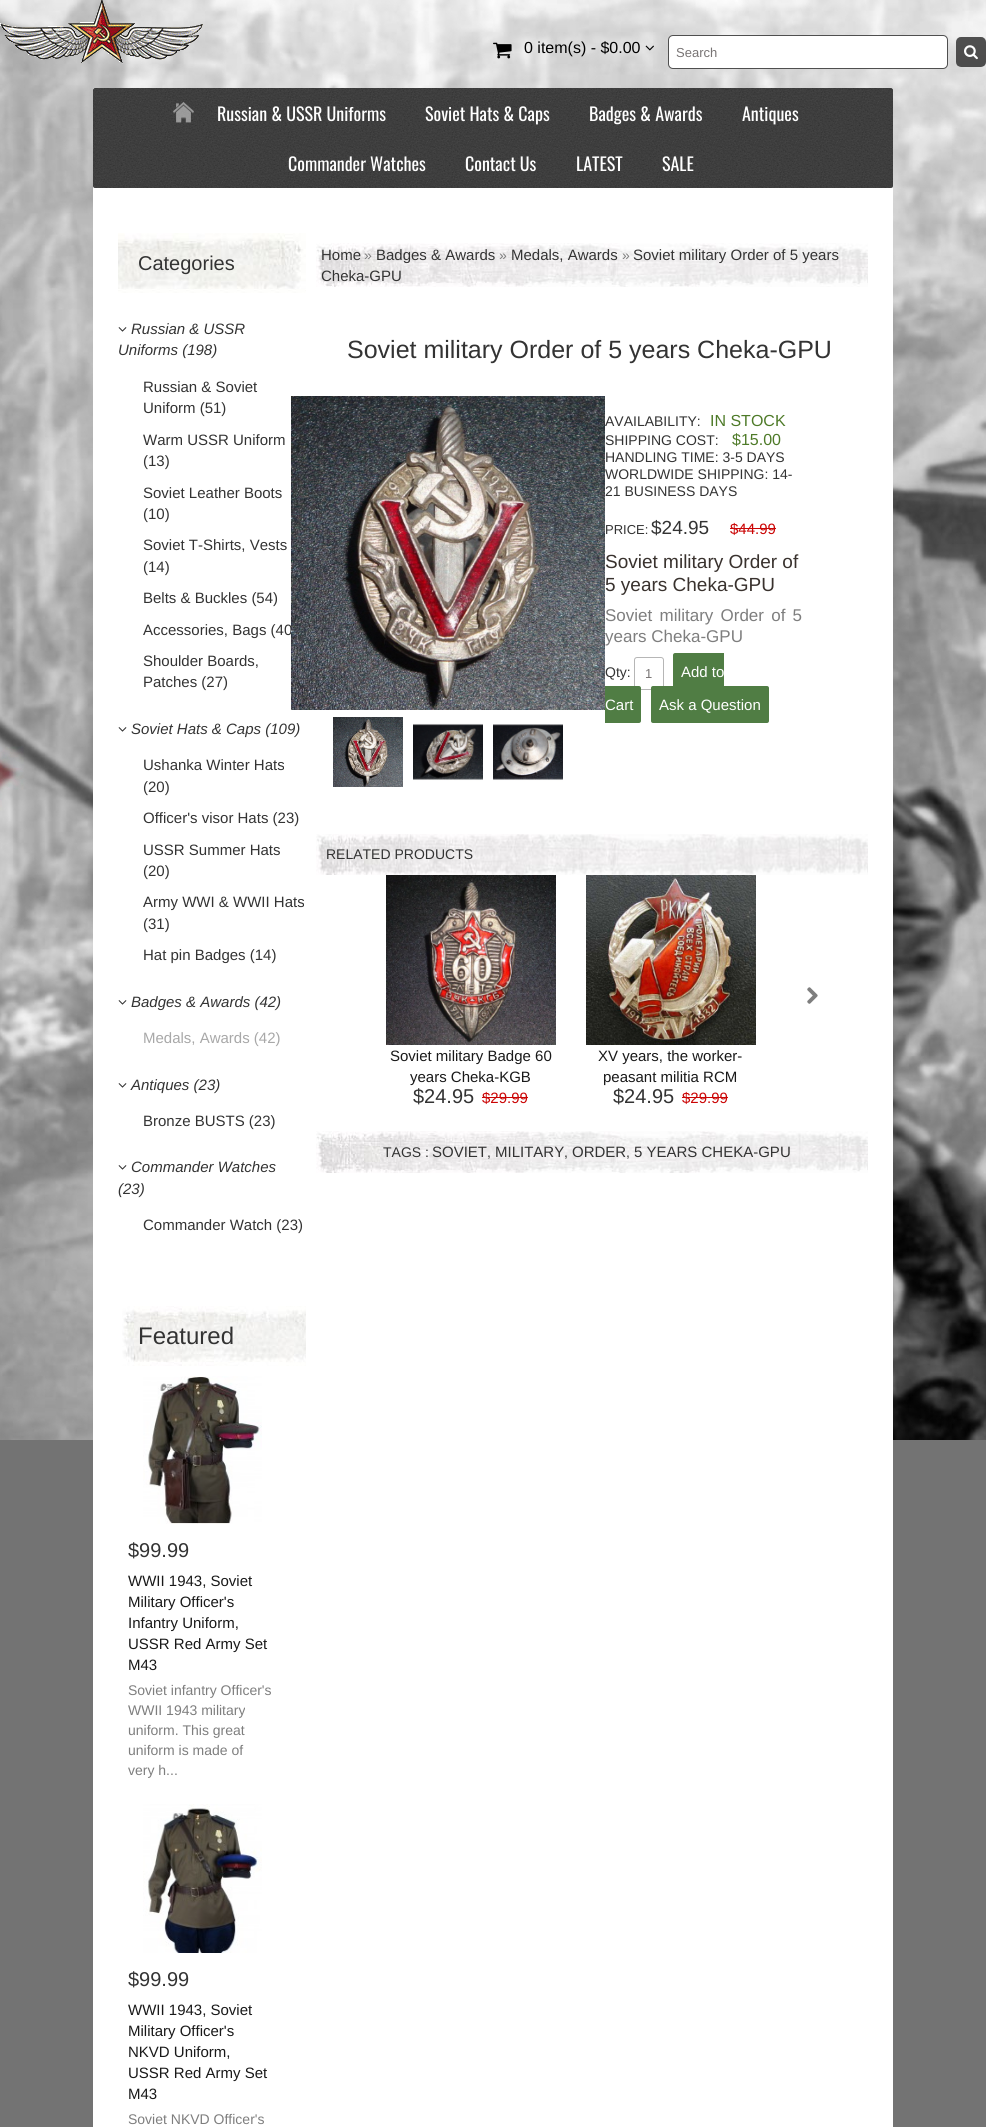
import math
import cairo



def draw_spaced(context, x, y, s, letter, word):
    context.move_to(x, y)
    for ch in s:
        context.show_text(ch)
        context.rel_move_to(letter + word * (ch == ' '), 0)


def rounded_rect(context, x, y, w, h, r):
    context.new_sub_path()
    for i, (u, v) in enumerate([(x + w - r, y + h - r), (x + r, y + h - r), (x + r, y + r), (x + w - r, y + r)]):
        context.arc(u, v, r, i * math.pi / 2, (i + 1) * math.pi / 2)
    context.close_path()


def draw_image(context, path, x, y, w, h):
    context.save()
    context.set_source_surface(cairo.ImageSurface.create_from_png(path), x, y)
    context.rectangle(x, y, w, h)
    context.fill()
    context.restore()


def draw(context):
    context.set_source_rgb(115 / 255, 115 / 255, 115 / 255)
    context.paint()
    draw_image(context, "images/1.png", 0, 0, 986, 1440)
    draw_image(context, "images/2.png", 0, 0, 203, 64)
    draw_image(context, "images/3.png", 493, 42, 19, 17)
    draw_image(context, "images/4.png", 645, 45, 9, 6)
    context.set_source_rgb(1, 1, 1)
    rounded_rect(context, 668.5, 35.5, 279, 33, 4.5)
    context.fill_preserve()
    context.set_source_rgb(79 / 255, 79 / 255, 79 / 255)
    context.set_line_width(1)
    context.stroke()
    draw_image(context, "images/5.png", 956, 37, 30, 30)
    draw_image(context, "images/6.png", 964, 45, 14, 15)
    context.set_source_rgb(1, 1, 1)
    context.rectangle(93, 88, 800, 2039)
    context.fill()
    context.set_source_rgb(73 / 255, 73 / 255, 73 / 255)
    rounded_rect(context, 93, 88, 800, 100, 2)
    context.fill()
    draw_image(context, "images/7.png", 93, 88, 800, 100)
    draw_image(context, "images/8.png", 173, 102, 21, 21)
    draw_image(context, "images/9.png", 118, 233, 188, 60)
    draw_image(context, "images/10.png", 118, 327, 9, 5)
    draw_image(context, "images/10.png", 118, 727, 9, 5)
    draw_image(context, "images/10.png", 118, 1000, 9, 5)
    draw_image(context, "images/10.png", 118, 1083, 9, 5)
    draw_image(context, "images/10.png", 118, 1165, 9, 5)
    draw_image(context, "images/11.png", 122, 1306, 184, 60)
    draw_image(context, "images/12.png", 143, 1376, 119, 148)
    draw_image(context, "images/13.png", 143, 1804, 119, 149)
    draw_image(context, "images/14.png", 316, 243, 552, 44)
    draw_image(context, "images/16.png", 333, 717, 70, 70)
    draw_image(context, "images/17.png", 413, 717, 70, 70)
    draw_image(context, "images/18.png", 493, 717, 70, 70)
    context.set_source_rgb(202 / 255, 4 / 255, 4 / 255)
    context.rectangle(730, 528, 46, 1)
    context.fill()
    rounded_rect(context, 634.5, 657.5, 29, 32, 2.5)
    context.set_source_rgb(182 / 255, 182 / 255, 182 / 255)
    context.stroke()
    context.set_source_rgb(80 / 255, 125 / 255, 68 / 255)
    context.new_path()
    context.move_to(675, 653)
    context.line_to(724, 653)
    context.line_to(724, 690)
    context.line_to(675, 690)
    context.curve_to(674, 690, 673, 689, 673, 688)
    context.line_to(673, 655)
    context.curve_to(673, 654, 674, 653, 675, 653)
    context.close_path()
    context.fill()
    context.new_path()
    context.move_to(605, 686)
    context.line_to(639, 686)
    context.curve_to(640, 686, 641, 687, 641, 688)
    context.line_to(641, 721)
    context.curve_to(641, 722, 640, 723, 639, 723)
    context.line_to(605, 723)
    context.close_path()
    context.fill()
    rounded_rect(context, 651, 686, 118, 37, 2)
    context.fill()
    draw_image(context, "images/19.png", 316, 834, 552, 41)
    draw_image(context, "images/20.png", 807, 987, 11, 17)
    draw_image(context, "images/21.png", 386, 875, 170, 170)
    context.set_source_rgb(202 / 255, 4 / 255, 4 / 255)
    context.rectangle(482, 1097, 46, 1)
    context.fill()
    draw_image(context, "images/22.png", 586, 875, 170, 170)
    context.rectangle(682, 1097, 46, 1)
    context.fill()
    draw_image(context, "images/23.png", 316, 1131, 552, 42)
    context.select_font_face("Liberation Sans")
    context.set_font_size(16)
    context.set_source_rgb(0, 0, 0)
    context.move_to(524, 53)
    context.show_text("0 item(s) - $0.00")
    context.set_font_size(13)
    context.set_source_rgb(120 / 255, 116 / 255, 116 / 255)
    context.move_to(676, 57)
    context.show_text("Search")
    context.select_font_face("Oswald")
    context.set_font_size(18)
    context.set_source_rgb(1, 1, 1)
    context.move_to(217, 121)
    context.show_text("Russian & USSR Uniforms")
    context.move_to(425, 121)
    context.show_text("Soviet Hats & Caps")
    context.move_to(589, 121)
    context.show_text("Badges & Awards")
    context.move_to(742, 121)
    context.show_text("Antiques")
    context.move_to(288, 171)
    context.show_text("Commander Watches")
    context.move_to(465, 171)
    context.show_text("Contact Us")
    context.move_to(576, 171)
    context.show_text("LATEST")
    context.move_to(662, 171)
    context.show_text("SALE")
    context.select_font_face("Liberation Sans")
    context.set_font_size(20)
    context.set_source_rgb(51 / 255, 51 / 255, 51 / 255)
    context.move_to(138, 270)
    context.show_text("Categories")
    context.select_font_face("Liberation Sans", cairo.FontSlant.ITALIC)
    context.set_font_size(15)
    context.move_to(131, 334)
    context.show_text("Russian & USSR")
    context.move_to(118, 355)
    context.show_text("Uniforms (198)")
    context.select_font_face("Liberation Sans")
    context.move_to(143, 392)
    context.show_text("Russian & Soviet")
    context.move_to(143, 413)
    context.show_text("Uniform (51)")
    context.move_to(143, 445)
    context.show_text("Warm USSR Uniform")
    context.move_to(143, 466)
    context.show_text("(13)")
    context.move_to(143, 498)
    context.show_text("Soviet Leather Boots")
    context.move_to(143, 519)
    context.show_text("(10)")
    context.move_to(143, 550)
    context.show_text("Soviet T-Shirts, Vests")
    context.move_to(143, 572)
    context.show_text("(14)")
    context.move_to(143, 603)
    context.show_text("Belts & Buckles (54)")
    context.move_to(143, 635)
    context.show_text("Accessories, Bags (40")
    context.move_to(143, 666)
    context.show_text("Shoulder Boards,")
    context.move_to(143, 687)
    context.show_text("Patches (27)")
    context.select_font_face("Liberation Sans", cairo.FontSlant.ITALIC)
    context.move_to(131, 734)
    context.show_text("Soviet Hats & Caps (109)")
    context.select_font_face("Liberation Sans")
    context.move_to(143, 770)
    context.show_text("Ushanka Winter Hats")
    context.move_to(143, 792)
    context.show_text("(20)")
    context.move_to(143, 823)
    context.show_text("Officer's visor Hats (23)")
    context.move_to(143, 855)
    context.show_text("USSR Summer Hats")
    context.move_to(143, 876)
    context.show_text("(20)")
    context.move_to(143, 907)
    context.show_text("Army WWI & WWII Hats")
    context.move_to(143, 929)
    context.show_text("(31)")
    context.move_to(143, 960)
    context.show_text("Hat pin Badges (14)")
    context.select_font_face("Liberation Sans", cairo.FontSlant.ITALIC)
    context.move_to(131, 1007)
    context.show_text("Badges & Awards (42)")
    context.select_font_face("Liberation Sans")
    context.set_source_rgb(168 / 255, 168 / 255, 168 / 255)
    context.move_to(143, 1043)
    context.show_text("Medals, Awards (42)")
    context.select_font_face("Liberation Sans", cairo.FontSlant.ITALIC)
    context.set_source_rgb(51 / 255, 51 / 255, 51 / 255)
    context.move_to(131, 1090)
    context.show_text("Antiques (23)")
    context.select_font_face("Liberation Sans")
    context.move_to(143, 1126)
    context.show_text("Bronze BUSTS (23)")
    context.select_font_face("Liberation Sans", cairo.FontSlant.ITALIC)
    context.move_to(131, 1172)
    context.show_text("Commander Watches")
    context.move_to(118, 1194)
    context.show_text("(23)")
    context.select_font_face("Liberation Sans")
    context.move_to(143, 1230)
    context.show_text("Commander Watch (23)")
    context.set_font_size(24)
    context.move_to(138, 1344)
    context.show_text("Featured")
    context.set_font_size(20)
    context.move_to(128, 1557)
    context.show_text("$99.99")
    context.set_font_size(15)
    context.set_source_rgb(25 / 255, 25 / 255, 25 / 255)
    context.move_to(128, 1586)
    context.show_text("WWII 1943, Soviet")
    context.move_to(128, 1607)
    context.show_text("Military Officer's")
    context.move_to(128, 1628)
    context.show_text("Infantry Uniform,")
    context.move_to(128, 1649)
    context.show_text("USSR Red Army Set")
    context.move_to(128, 1670)
    context.show_text("M43")
    context.set_font_size(14)
    context.set_source_rgb(126 / 255, 126 / 255, 126 / 255)
    context.move_to(128, 1695)
    context.show_text("Soviet infantry Officer's")
    context.move_to(128, 1715)
    context.show_text("WWII 1943 military")
    context.move_to(128, 1735)
    context.show_text("uniform. This great")
    context.move_to(128, 1755)
    context.show_text("uniform is made of")
    context.move_to(128, 1775)
    context.show_text("very h...")
    context.set_font_size(20)
    context.set_source_rgb(51 / 255, 51 / 255, 51 / 255)
    context.move_to(128, 1986)
    context.show_text("$99.99")
    context.set_font_size(15)
    context.set_source_rgb(25 / 255, 25 / 255, 25 / 255)
    context.move_to(128, 2015)
    context.show_text("WWII 1943, Soviet")
    context.move_to(128, 2036)
    context.show_text("Military Officer's")
    context.move_to(128, 2057)
    context.show_text("NKVD Uniform,")
    context.move_to(128, 2078)
    context.show_text("USSR Red Army Set")
    context.move_to(128, 2099)
    context.show_text("M43")
    context.set_font_size(14)
    context.set_source_rgb(126 / 255, 126 / 255, 126 / 255)
    context.move_to(128, 2124)
    context.show_text("Soviet NKVD Officer's")
    context.set_font_size(15)
    context.set_source_rgb(51 / 255, 51 / 255, 51 / 255)
    context.move_to(321, 260)
    context.show_text("Home")
    context.set_font_size(14)
    context.set_source_rgb(126 / 255, 126 / 255, 126 / 255)
    context.move_to(364, 260)
    context.show_text("»")
    context.set_font_size(15)
    context.set_source_rgb(51 / 255, 51 / 255, 51 / 255)
    context.move_to(376, 260)
    context.show_text("Badges & Awards")
    context.set_font_size(14)
    context.set_source_rgb(126 / 255, 126 / 255, 126 / 255)
    context.move_to(499, 260)
    context.show_text("»")
    context.set_font_size(15)
    context.set_source_rgb(51 / 255, 51 / 255, 51 / 255)
    context.move_to(511, 260)
    context.show_text("Medals, Awards")
    context.set_font_size(14)
    context.set_source_rgb(126 / 255, 126 / 255, 126 / 255)
    context.move_to(622, 260)
    context.show_text("»")
    context.set_font_size(15)
    context.set_source_rgb(51 / 255, 51 / 255, 51 / 255)
    context.move_to(633, 260)
    context.show_text("Soviet military Order of 5 years")
    context.move_to(321, 281)
    context.show_text("Cheka-GPU")
    context.set_font_size(25)
    context.move_to(347, 358)
    context.show_text("Soviet military Order of 5 years Cheka-GPU")
    context.set_font_size(14)
    context.move_to(605, 426)
    context.show_text("AVAILABILITY:")
    context.set_font_size(16)
    context.set_source_rgb(78 / 255, 122 / 255, 40 / 255)
    context.move_to(710, 426)
    context.show_text("IN STOCK")
    context.set_font_size(14)
    context.set_source_rgb(51 / 255, 51 / 255, 51 / 255)
    context.move_to(605, 445)
    context.show_text("SHIPPING COST:")
    context.set_font_size(16)
    context.set_source_rgb(78 / 255, 122 / 255, 40 / 255)
    context.move_to(732, 445)
    context.show_text("$15.00")
    context.set_font_size(14)
    context.set_source_rgb(51 / 255, 51 / 255, 51 / 255)
    context.move_to(605, 462)
    context.show_text("HANDLING TIME: 3-5 DAYS")
    context.move_to(605, 479)
    context.show_text("WORLDWIDE SHIPPING: 14-")
    context.move_to(605, 496)
    context.show_text("21 BUSINESS DAYS")
    context.set_font_size(13)
    context.move_to(605, 534)
    context.show_text("PRICE:")
    context.set_font_size(19)
    context.move_to(651, 534)
    context.show_text("$24.95")
    context.set_font_size(15)
    context.set_source_rgb(202 / 255, 4 / 255, 4 / 255)
    context.move_to(730, 534)
    context.show_text("$44.99")
    context.set_font_size(19)
    context.set_source_rgb(57 / 255, 50 / 255, 46 / 255)
    context.move_to(605, 568)
    context.show_text("Soviet military Order of")
    context.move_to(605, 591)
    context.show_text("5 years Cheka-GPU")
    context.set_font_size(17)
    context.set_source_rgb(126 / 255, 126 / 255, 126 / 255)
    draw_spaced(context, 605, 621, "Soviet military Order of 5", 0, 2.5)
    context.move_to(605, 642)
    context.show_text("years Cheka-GPU")
    draw_image(context, "images/15.png", 291, 396, 314, 314)
    context.set_font_size(14)
    context.set_source_rgb(51 / 255, 51 / 255, 51 / 255)
    context.move_to(605, 677)
    context.show_text("Qty:")
    context.set_font_size(13)
    context.set_source_rgb(120 / 255, 116 / 255, 116 / 255)
    context.move_to(645, 678)
    context.show_text("1")
    context.set_font_size(15)
    context.set_source_rgb(1, 1, 1)
    context.move_to(681, 677)
    context.show_text("Add to")
    context.move_to(605, 710)
    context.show_text("Cart")
    context.move_to(659, 710)
    context.show_text("Ask a Question")
    context.set_font_size(14)
    context.set_source_rgb(51 / 255, 51 / 255, 51 / 255)
    context.move_to(326, 859)
    context.show_text("RELATED PRODUCTS")
    context.set_font_size(15)
    context.set_source_rgb(25 / 255, 25 / 255, 25 / 255)
    context.move_to(390, 1061)
    context.show_text("Soviet military Badge 60")
    context.move_to(410, 1082)
    context.show_text("years Cheka-KGB")
    context.set_font_size(20)
    context.set_source_rgb(51 / 255, 51 / 255, 51 / 255)
    context.move_to(413, 1103)
    context.show_text("$24.95")
    context.set_font_size(15)
    context.set_source_rgb(202 / 255, 4 / 255, 4 / 255)
    context.move_to(482, 1103)
    context.show_text("$29.99")
    context.set_source_rgb(25 / 255, 25 / 255, 25 / 255)
    context.move_to(598, 1061)
    context.show_text("XV years, the worker-")
    context.move_to(603, 1082)
    context.show_text("peasant militia RCM")
    context.set_font_size(20)
    context.set_source_rgb(51 / 255, 51 / 255, 51 / 255)
    context.move_to(613, 1103)
    context.show_text("$24.95")
    context.set_font_size(15)
    context.set_source_rgb(202 / 255, 4 / 255, 4 / 255)
    context.move_to(682, 1103)
    context.show_text("$29.99")
    context.set_font_size(14)
    context.set_source_rgb(51 / 255, 51 / 255, 51 / 255)
    context.move_to(383, 1157)
    context.show_text("TAGS :")
    context.set_font_size(15)
    context.move_to(432, 1157)
    context.show_text("SOVIET")
    context.set_font_size(14)
    context.move_to(487, 1157)
    context.show_text(",")
    context.set_font_size(15)
    context.move_to(495, 1157)
    context.show_text("MILITARY")
    context.set_font_size(14)
    context.move_to(564, 1157)
    context.show_text(",")
    context.set_font_size(15)
    context.move_to(572, 1157)
    context.show_text("ORDER")
    context.set_font_size(14)
    context.move_to(626, 1157)
    context.show_text(",")
    context.set_font_size(15)
    context.move_to(634, 1157)
    context.show_text("5 YEARS CHEKA-GPU")


surface = cairo.ImageSurface(cairo.Format.RGB24, 986, 2127)
context = cairo.Context(surface)
options = cairo.FontOptions()
options.set_hint_metrics(cairo.HintMetrics.OFF)
options.set_hint_style(cairo.HintStyle.NONE)
context.set_font_options(options)
context.set_miter_limit(4)
draw(context)
surface.write_to_png("out.png")
